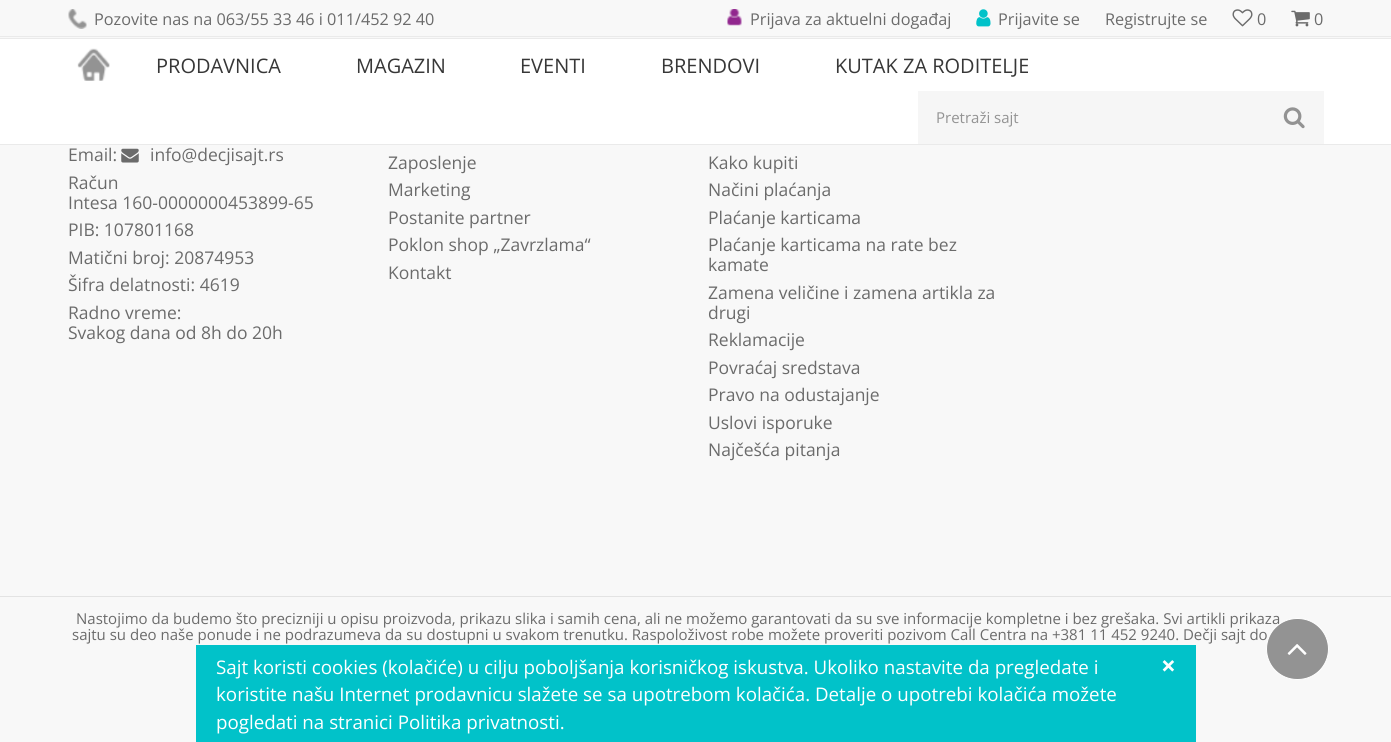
import math
import cairo



def rounded_rect(context, x, y, w, h, r):
    context.new_sub_path()
    for i, (u, v) in enumerate([(x + w - r, y + h - r), (x + r, y + h - r), (x + r, y + r), (x + w - r, y + r)]):
        context.arc(u, v, r, i * math.pi / 2, (i + 1) * math.pi / 2)
    context.close_path()


def draw_image(context, path, x, y, w, h):
    context.save()
    context.set_source_surface(cairo.ImageSurface.create_from_png(path), x, y)
    context.rectangle(x, y, w, h)
    context.fill()
    context.restore()


def draw(context):
    context.set_source_rgb(248 / 255, 248 / 255, 248 / 255)
    context.paint()
    context.set_source_rgb(234 / 255, 234 / 255, 234 / 255)
    context.rectangle(0, 36, 1391, 1)
    context.fill()
    draw_image(context, "images/1.png", 68, 9, 19, 20)
    draw_image(context, "images/2.png", 727, 9, 15, 17)
    draw_image(context, "images/3.png", 976, 9, 15, 18)
    draw_image(context, "images/4.png", 1232, 9, 21, 18)
    draw_image(context, "images/5.png", 1291, 10, 19, 17)
    context.set_source_rgb(1, 1, 1)
    context.rectangle(0, 39, 1391, 105)
    context.fill()
    context.set_source_rgb(234 / 255, 234 / 255, 234 / 255)
    context.rectangle(0, 38, 1391, 1)
    context.fill()
    context.rectangle(0, 144, 1391, 1)
    context.fill()
    draw_image(context, "images/6.png", 77, 48, 33, 33)
    context.set_source_rgb(246 / 255, 246 / 255, 246 / 255)
    context.rectangle(918, 91, 406, 53)
    context.fill()
    draw_image(context, "images/7.png", 1283, 107, 22, 22)
    draw_image(context, "images/8.png", 121, 148, 18, 15)
    context.set_source_rgb(227 / 255, 227 / 255, 227 / 255)
    context.rectangle(0, 596, 1391, 1)
    context.fill()
    context.set_source_rgb(1 / 255, 194 / 255, 201 / 255)
    context.rectangle(196, 645, 1000, 97)
    context.fill()
    context.select_font_face("Open Sans")
    context.set_font_size(16.25)
    context.set_source_rgb(107 / 255, 107 / 255, 107 / 255)
    context.move_to(94, 25)
    context.show_text("Pozovite nas na 063/55 33 46 i 011/452 92 40")
    context.move_to(750, 25)
    context.show_text("Prijava za aktuelni događaj")
    context.move_to(998, 25)
    context.show_text("Prijavite se")
    context.move_to(1105, 25)
    context.show_text("Registrujte se")
    context.move_to(1257, 25)
    context.show_text("0")
    context.move_to(1314, 25)
    context.show_text("0")
    context.set_font_size(20)
    context.set_source_rgb(55 / 255, 55 / 255, 55 / 255)
    context.move_to(156, 73)
    context.show_text("PRODAVNICA")
    context.move_to(356, 73)
    context.show_text("MAGAZIN")
    context.move_to(520, 73)
    context.show_text("EVENTI")
    context.move_to(661, 73)
    context.show_text("BRENDOVI")
    context.move_to(835, 73)
    context.show_text("KUTAK ZA RODITELJE")
    context.set_font_size(15)
    context.set_source_rgb(147 / 255, 147 / 255, 147 / 255)
    context.move_to(936, 123)
    context.show_text("Pretraži sajt")
    context.set_font_size(17.5)
    context.set_source_rgb(107 / 255, 107 / 255, 107 / 255)
    context.move_to(68, 161)
    context.show_text("Email:")
    context.move_to(150, 161)
    context.show_text("info@decjisajt.rs")
    context.move_to(68, 189)
    context.show_text("Račun")
    context.move_to(68, 209)
    context.show_text("Intesa 160-0000000453899-65")
    context.move_to(68, 236)
    context.show_text("PIB: 107801168")
    context.move_to(68, 264)
    context.show_text("Matični broj: 20874953")
    context.move_to(68, 291)
    context.show_text("Šifra delatnosti: 4619")
    context.move_to(68, 319)
    context.show_text("Radno vreme:")
    context.move_to(68, 339)
    context.show_text("Svakog dana od 8h do 20h")
    context.move_to(388, 169)
    context.show_text("Zaposlenje")
    context.move_to(388, 196)
    context.show_text("Marketing")
    context.move_to(388, 224)
    context.show_text("Postanite partner")
    context.move_to(388, 251)
    context.show_text("Poklon shop „Zavrzlama“")
    context.move_to(388, 279)
    context.show_text("Kontakt")
    context.move_to(708, 169)
    context.show_text("Kako kupiti")
    context.move_to(708, 196)
    context.show_text("Načini plaćanja")
    context.move_to(708, 224)
    context.show_text("Plaćanje karticama")
    context.move_to(708, 251)
    context.show_text("Plaćanje karticama na rate bez")
    context.move_to(708, 271)
    context.show_text("kamate")
    context.move_to(708, 299)
    context.show_text("Zamena veličine i zamena artikla za")
    context.move_to(708, 319)
    context.show_text("drugi")
    context.move_to(708, 346)
    context.show_text("Reklamacije")
    context.move_to(708, 374)
    context.show_text("Povraćaj sredstava")
    context.move_to(708, 401)
    context.show_text("Pravo na odustajanje")
    context.move_to(708, 429)
    context.show_text("Uslovi isporuke")
    context.move_to(708, 456)
    context.show_text("Najčešća pitanja")
    context.set_font_size(15)
    context.move_to(76, 624)
    context.show_text("Nastojimo da budemo što precizniji u opisu proizvoda, prikazu slika i samih cena, ali ne možemo garantovati da su sve informacije kompletne i bez grešaka. Svi artikli prikaza")
    context.move_to(72, 640)
    context.show_text("sajtu su deo naše ponude i ne podrazumeva da su dostupni u svakom trenutku. Raspoloživost robe možete proveriti pozivom Call Centra na +381 11 452 9240. Dečji sajt do")
    context.set_source_rgb(147 / 255, 147 / 255, 147 / 255)
    rounded_rect(context, 1266.5, 618.5, 62, 61, 30.5)
    context.fill_preserve()
    context.set_source_rgb(1, 1, 1)
    context.set_line_width(1)
    context.stroke()
    draw_image(context, "images/9.png", 1287, 644, 20, 11)
    context.set_font_size(18.75)
    context.move_to(216, 674)
    context.show_text("Sajt koristi cookies (kolačiće) u cilju poboljšanja korisničkog iskustva. Ukoliko nastavite da pregledate i")
    context.move_to(216, 701)
    context.show_text("koristite našu Internet prodavnicu slažete se sa upotrebom kolačića. Detalje o upotrebi kolačića možete")
    context.move_to(216, 729)
    context.show_text("pogledati na stranici Politika privatnosti.")
    context.select_font_face("Open Sans", cairo.FontSlant.NORMAL, cairo.FontWeight.BOLD)
    context.set_font_size(26)
    context.move_to(1161, 675)
    context.show_text("×")


surface = cairo.ImageSurface(cairo.Format.RGB24, 1391, 742)
context = cairo.Context(surface)
options = cairo.FontOptions()
options.set_hint_metrics(cairo.HintMetrics.OFF)
options.set_hint_style(cairo.HintStyle.NONE)
context.set_font_options(options)
context.set_miter_limit(4)
draw(context)
surface.write_to_png("out.png")
